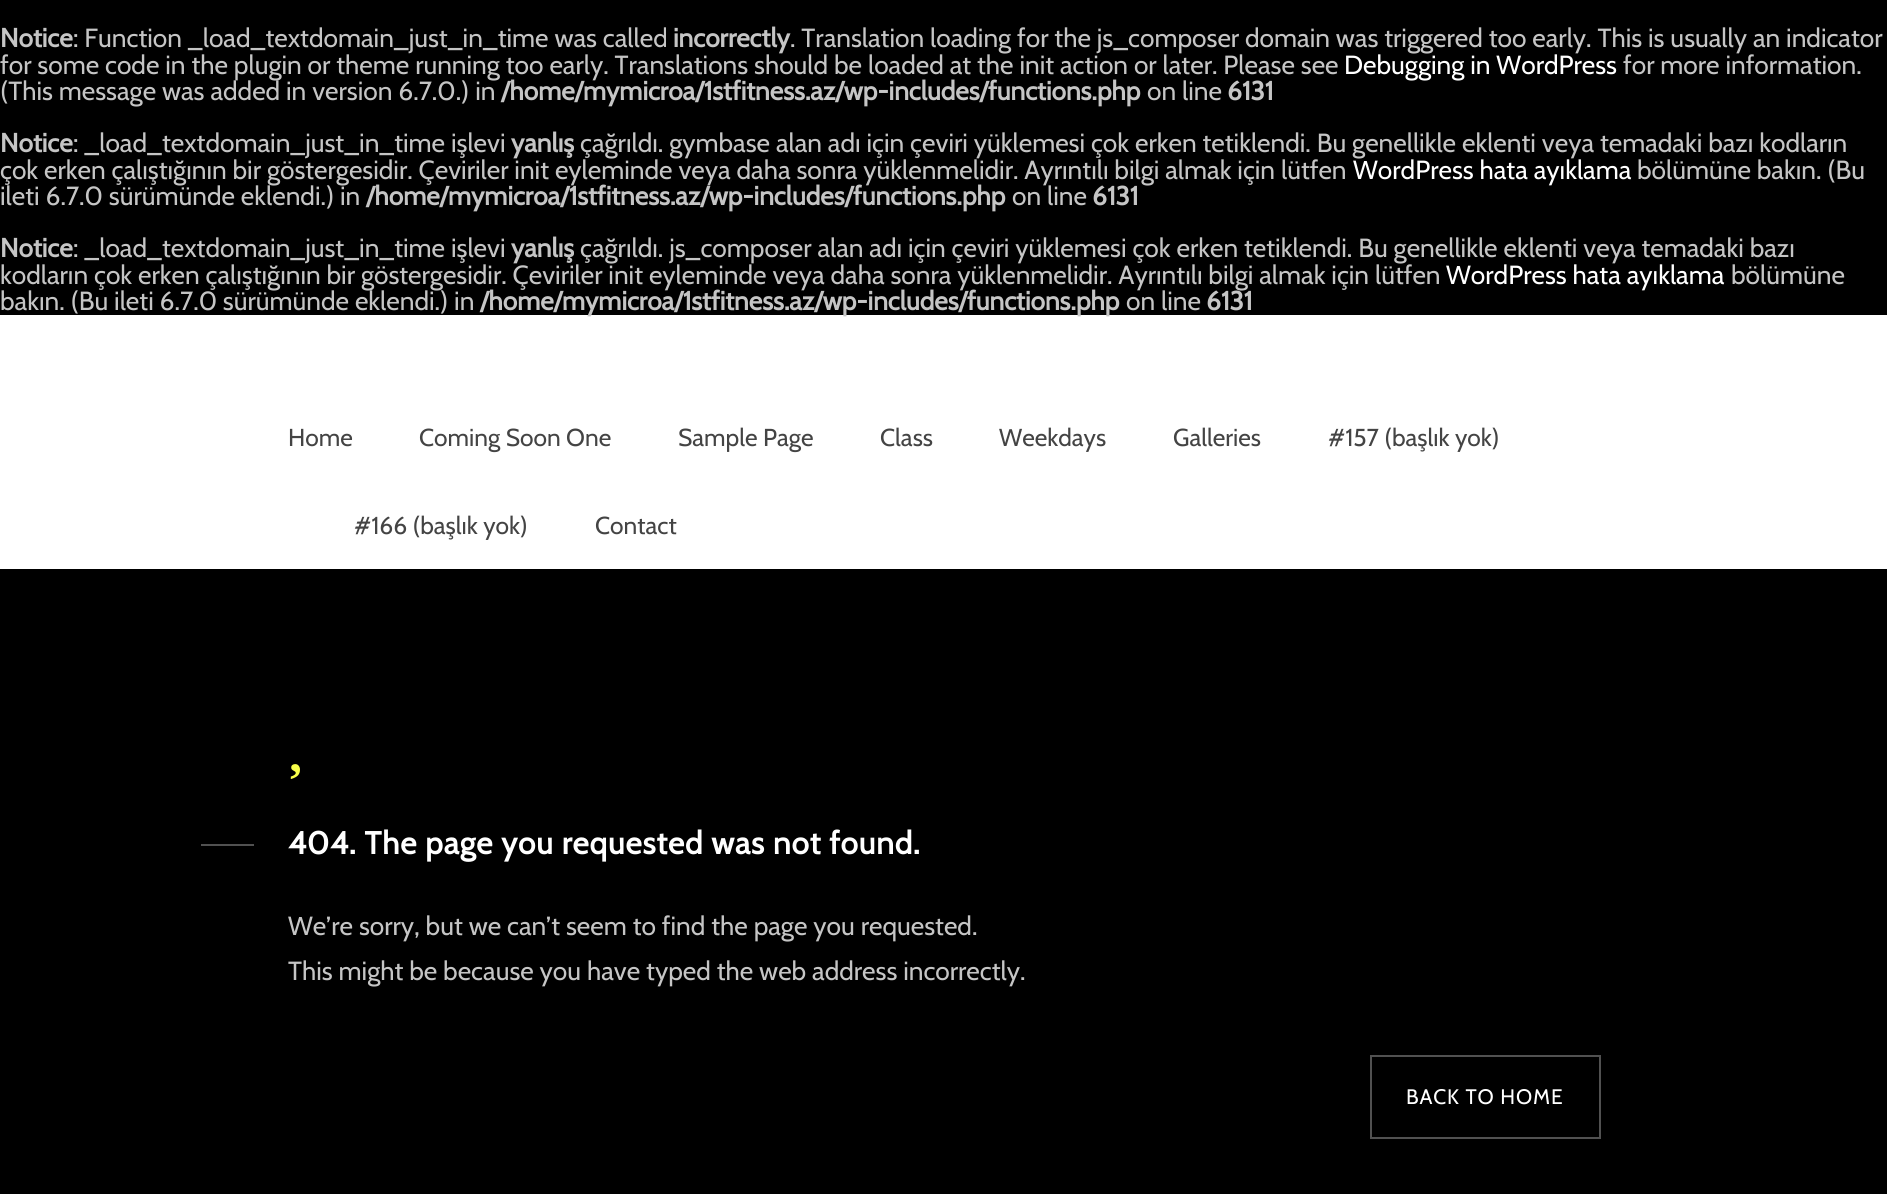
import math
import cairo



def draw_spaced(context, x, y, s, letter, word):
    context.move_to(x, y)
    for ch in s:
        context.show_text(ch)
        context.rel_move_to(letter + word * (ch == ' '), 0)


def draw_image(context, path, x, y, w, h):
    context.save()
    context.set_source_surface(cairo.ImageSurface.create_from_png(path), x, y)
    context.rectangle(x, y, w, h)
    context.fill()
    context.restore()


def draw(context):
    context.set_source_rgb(0, 0, 0)
    context.paint()
    context.set_source_rgb(1, 1, 1)
    context.rectangle(0, 315, 1887, 254)
    context.fill()
    draw_image(context, "images/1.png", 290, 764, 10, 15)
    context.set_source_rgb(81 / 255, 81 / 255, 81 / 255)
    context.rectangle(201, 844, 53, 2)
    context.fill()
    context.rectangle(1371, 1056, 229, 82)
    context.stroke()
    context.select_font_face("Cabin", cairo.FontSlant.NORMAL, cairo.FontWeight.BOLD)
    context.set_font_size(26.25)
    context.set_source_rgb(197 / 255, 197 / 255, 197 / 255)
    context.move_to(0, 47)
    context.show_text("Notice")
    context.select_font_face("Cabin")
    context.move_to(73, 47)
    context.show_text(": Function _load_textdomain_just_in_time was called")
    context.select_font_face("Cabin", cairo.FontSlant.NORMAL, cairo.FontWeight.BOLD)
    context.move_to(673, 47)
    context.show_text("incorrectly")
    context.select_font_face("Cabin")
    context.move_to(790, 47)
    context.show_text(". Translation loading for the js_composer domain was triggered too early. This is usually an indicator")
    context.move_to(0, 74)
    context.show_text("for some code in the plugin or theme running too early. Translations should be loaded at the init action or later. Please see")
    context.set_source_rgb(1, 1, 1)
    context.move_to(1344, 74)
    context.show_text("Debugging in WordPress")
    context.set_source_rgb(197 / 255, 197 / 255, 197 / 255)
    context.move_to(1623, 74)
    context.show_text("for more information.")
    context.move_to(0, 100)
    context.show_text("(This message was added in version 6.7.0.) in")
    context.select_font_face("Cabin", cairo.FontSlant.NORMAL, cairo.FontWeight.BOLD)
    context.move_to(501, 100)
    context.show_text("/home/mymicroa/1stfitness.az/wp-includes/functions.php")
    context.select_font_face("Cabin")
    context.move_to(1147, 100)
    context.show_text("on line")
    context.select_font_face("Cabin", cairo.FontSlant.NORMAL, cairo.FontWeight.BOLD)
    context.move_to(1227, 100)
    context.show_text("6131")
    context.move_to(0, 152)
    context.show_text("Notice")
    context.select_font_face("Cabin")
    context.move_to(73, 152)
    context.show_text(": _load_textdomain_just_in_time işlevi")
    context.select_font_face("Cabin", cairo.FontSlant.NORMAL, cairo.FontWeight.BOLD)
    context.move_to(511, 152)
    context.show_text("yanlış")
    context.select_font_face("Cabin")
    context.move_to(580, 152)
    context.show_text("çağrıldı. gymbase alan adı için çeviri yüklemesi çok erken tetiklendi. Bu genellikle eklenti veya temadaki bazı kodların")
    context.move_to(0, 179)
    context.show_text("çok erken çalıştığının bir göstergesidir. Çeviriler init eyleminde veya daha sonra yüklenmelidir. Ayrıntılı bilgi almak için lütfen")
    context.set_source_rgb(1, 1, 1)
    context.move_to(1353, 179)
    context.show_text("WordPress hata ayıklama")
    context.set_source_rgb(197 / 255, 197 / 255, 197 / 255)
    context.move_to(1637, 179)
    context.show_text("bölümüne bakın. (Bu")
    context.move_to(0, 205)
    context.show_text("ileti 6.7.0 sürümünde eklendi.) in")
    context.select_font_face("Cabin", cairo.FontSlant.NORMAL, cairo.FontWeight.BOLD)
    context.move_to(366, 205)
    context.show_text("/home/mymicroa/1stfitness.az/wp-includes/functions.php")
    context.select_font_face("Cabin")
    context.move_to(1012, 205)
    context.show_text("on line")
    context.select_font_face("Cabin", cairo.FontSlant.NORMAL, cairo.FontWeight.BOLD)
    context.move_to(1092, 205)
    context.show_text("6131")
    context.move_to(0, 257)
    context.show_text("Notice")
    context.select_font_face("Cabin")
    context.move_to(73, 257)
    context.show_text(": _load_textdomain_just_in_time işlevi")
    context.select_font_face("Cabin", cairo.FontSlant.NORMAL, cairo.FontWeight.BOLD)
    context.move_to(511, 257)
    context.show_text("yanlış")
    context.select_font_face("Cabin")
    context.move_to(580, 257)
    context.show_text("çağrıldı. js_composer alan adı için çeviri yüklemesi çok erken tetiklendi. Bu genellikle eklenti veya temadaki bazı")
    context.move_to(0, 284)
    context.show_text("kodların çok erken çalıştığının bir göstergesidir. Çeviriler init eyleminde veya daha sonra yüklenmelidir. Ayrıntılı bilgi almak için lütfen")
    context.set_source_rgb(1, 1, 1)
    context.move_to(1446, 284)
    context.show_text("WordPress hata ayıklama")
    context.set_source_rgb(197 / 255, 197 / 255, 197 / 255)
    context.move_to(1731, 284)
    context.show_text("bölümüne")
    context.move_to(0, 310)
    context.show_text("bakın. (Bu ileti 6.7.0 sürümünde eklendi.) in")
    context.select_font_face("Cabin", cairo.FontSlant.NORMAL, cairo.FontWeight.BOLD)
    context.move_to(480, 310)
    context.show_text("/home/mymicroa/1stfitness.az/wp-includes/functions.php")
    context.select_font_face("Cabin")
    context.move_to(1126, 310)
    context.show_text("on line")
    context.select_font_face("Cabin", cairo.FontSlant.NORMAL, cairo.FontWeight.BOLD)
    context.move_to(1206, 310)
    context.show_text("6131")
    context.select_font_face("Cabin")
    context.set_font_size(24.5)
    context.set_source_rgb(68 / 255, 68 / 255, 68 / 255)
    context.move_to(288, 446)
    context.show_text("Home")
    context.move_to(419, 446)
    context.show_text("Coming Soon One")
    context.move_to(678, 446)
    context.show_text("Sample Page")
    context.move_to(880, 446)
    context.show_text("Class")
    context.move_to(999, 446)
    context.show_text("Weekdays")
    context.move_to(1173, 446)
    context.show_text("Galleries")
    context.move_to(1328, 446)
    context.show_text("#157 (başlık yok)")
    context.move_to(354, 534)
    context.show_text("#166 (başlık yok)")
    context.move_to(595, 534)
    context.show_text("Contact")
    context.select_font_face("Cabin", cairo.FontSlant.NORMAL, cairo.FontWeight.BOLD)
    context.set_font_size(31.5)
    context.set_source_rgb(1, 1, 1)
    draw_spaced(context, 288, 854, "404. The page you requested was not found.", 0.9, 0)
    context.select_font_face("Cabin")
    context.set_font_size(26.25)
    context.set_source_rgb(197 / 255, 197 / 255, 197 / 255)
    context.move_to(288, 935)
    context.show_text("We’re sorry, but we can’t seem to find the page you requested.")
    context.move_to(288, 980)
    context.show_text("This might be because you have typed the web address incorrectly.")
    context.set_font_size(21)
    context.set_source_rgb(1, 1, 1)
    draw_spaced(context, 1406, 1104, "BACK TO HOME", 0.9, 0)


surface = cairo.ImageSurface(cairo.Format.RGB24, 1887, 1194)
context = cairo.Context(surface)
options = cairo.FontOptions()
options.set_hint_metrics(cairo.HintMetrics.OFF)
options.set_hint_style(cairo.HintStyle.NONE)
context.set_font_options(options)
context.set_miter_limit(4)
draw(context)
surface.write_to_png("out.png")
